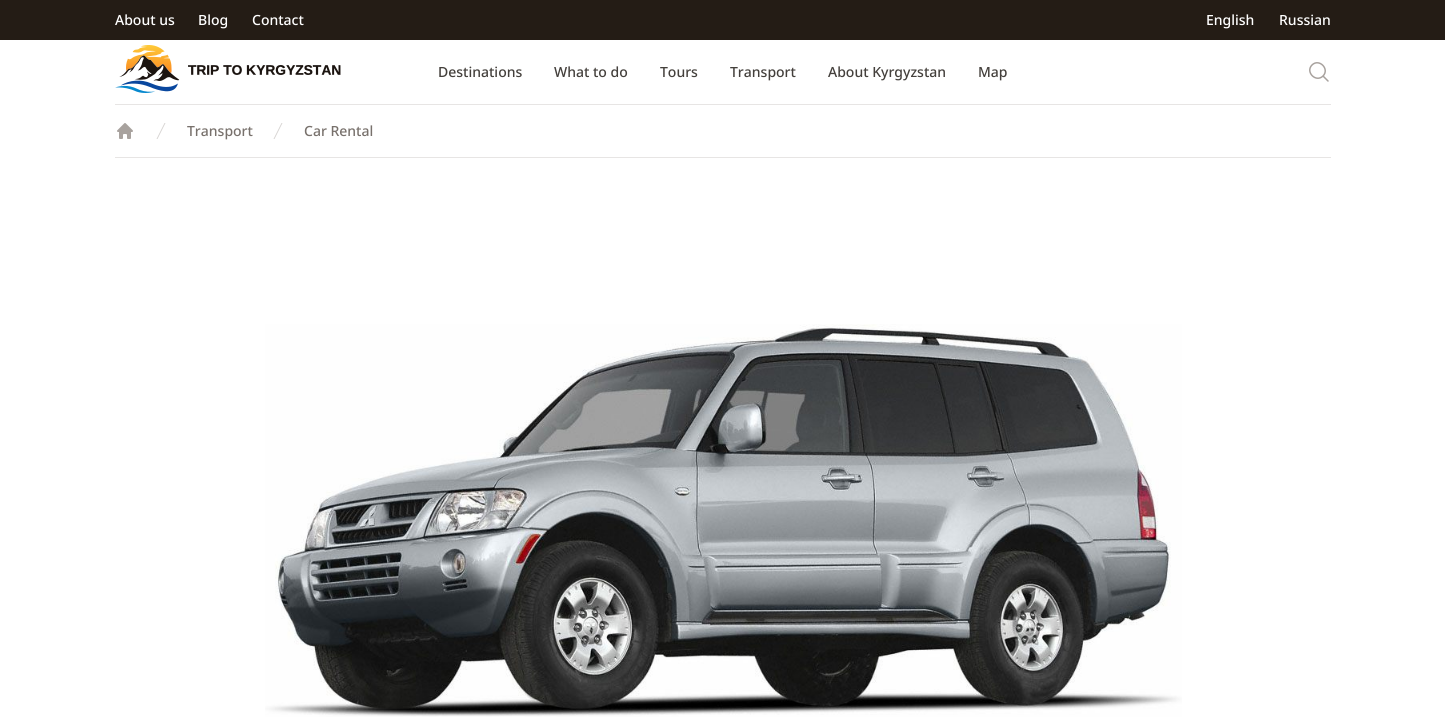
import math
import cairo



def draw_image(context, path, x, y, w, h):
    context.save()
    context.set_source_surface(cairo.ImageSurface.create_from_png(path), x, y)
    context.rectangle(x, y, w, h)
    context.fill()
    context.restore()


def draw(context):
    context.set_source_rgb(1, 1, 1)
    context.paint()
    context.set_source_rgb(36 / 255, 28 / 255, 21 / 255)
    context.rectangle(0, 0, 1445, 40)
    context.fill()
    context.set_source_rgb(231 / 255, 229 / 255, 228 / 255)
    context.rectangle(115, 104, 1216, 1)
    context.fill()
    draw_image(context, "images/1.png", 115, 45, 226, 48)
    context.new_path()
    context.move_to(1328, 81)
    context.line_to(1323, 76)
    context.move_to(1323, 76)
    context.curve_to(1330, 69, 1319, 58, 1312, 65)
    context.curve_to(1305, 72, 1316, 83, 1323, 76)
    context.close_path()
    context.set_source_rgb(168 / 255, 162 / 255, 158 / 255)
    context.set_line_width(1.5)
    context.set_line_cap(cairo.LineCap.ROUND)
    context.set_line_join(cairo.LineJoin.ROUND)
    context.stroke()
    context.set_source_rgb(231 / 255, 229 / 255, 228 / 255)
    context.rectangle(115, 157, 1216, 1)
    context.fill()
    draw_image(context, "images/2.png", 117, 123, 16, 16)
    context.set_source_rgb(214 / 255, 211 / 255, 209 / 255)
    context.new_path()
    context.move_to(156.5, 139)
    context.line_to(164.5, 123)
    context.line_to(165.5, 123)
    context.line_to(157.5, 139)
    context.close_path()
    context.fill()
    context.new_path()
    context.move_to(273.5, 139)
    context.line_to(281.5, 123)
    context.line_to(282.5, 123)
    context.line_to(274.5, 139)
    context.close_path()
    context.fill()
    draw_image(context, "images/3.png", 265, 324, 917, 393)
    context.select_font_face("Noto Sans Medium")
    context.set_font_size(14)
    context.set_source_rgb(1, 1, 1)
    context.move_to(115, 25)
    context.show_text("About us")
    context.move_to(198, 25)
    context.show_text("Blog")
    context.move_to(252, 25)
    context.show_text("Contact")
    context.move_to(1206, 25)
    context.show_text("English")
    context.move_to(1279, 25)
    context.show_text("Russian")
    context.set_source_rgb(68 / 255, 64 / 255, 60 / 255)
    context.move_to(438, 77)
    context.show_text("Destinations")
    context.move_to(554, 77)
    context.show_text("What to do")
    context.move_to(660, 77)
    context.show_text("Tours")
    context.move_to(730, 77)
    context.show_text("Transport")
    context.move_to(828, 77)
    context.show_text("About Kyrgyzstan")
    context.move_to(978, 77)
    context.show_text("Map")
    context.set_source_rgb(120 / 255, 113 / 255, 108 / 255)
    context.move_to(187, 136)
    context.show_text("Transport")
    context.move_to(304, 136)
    context.show_text("Car Rental")


surface = cairo.ImageSurface(cairo.Format.RGB24, 1445, 722)
context = cairo.Context(surface)
options = cairo.FontOptions()
options.set_hint_metrics(cairo.HintMetrics.OFF)
options.set_hint_style(cairo.HintStyle.NONE)
context.set_font_options(options)
context.set_miter_limit(4)
draw(context)
surface.write_to_png("out.png")
